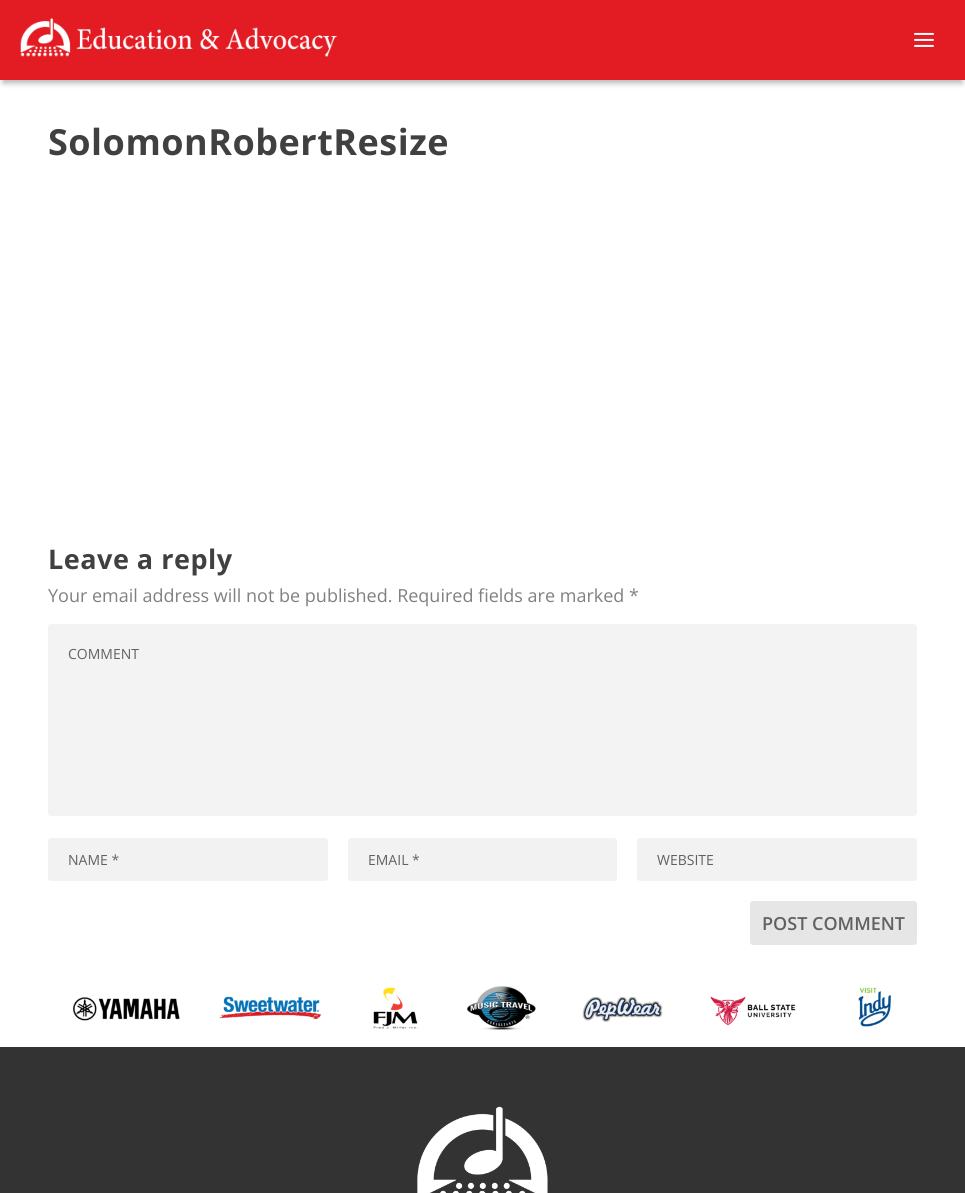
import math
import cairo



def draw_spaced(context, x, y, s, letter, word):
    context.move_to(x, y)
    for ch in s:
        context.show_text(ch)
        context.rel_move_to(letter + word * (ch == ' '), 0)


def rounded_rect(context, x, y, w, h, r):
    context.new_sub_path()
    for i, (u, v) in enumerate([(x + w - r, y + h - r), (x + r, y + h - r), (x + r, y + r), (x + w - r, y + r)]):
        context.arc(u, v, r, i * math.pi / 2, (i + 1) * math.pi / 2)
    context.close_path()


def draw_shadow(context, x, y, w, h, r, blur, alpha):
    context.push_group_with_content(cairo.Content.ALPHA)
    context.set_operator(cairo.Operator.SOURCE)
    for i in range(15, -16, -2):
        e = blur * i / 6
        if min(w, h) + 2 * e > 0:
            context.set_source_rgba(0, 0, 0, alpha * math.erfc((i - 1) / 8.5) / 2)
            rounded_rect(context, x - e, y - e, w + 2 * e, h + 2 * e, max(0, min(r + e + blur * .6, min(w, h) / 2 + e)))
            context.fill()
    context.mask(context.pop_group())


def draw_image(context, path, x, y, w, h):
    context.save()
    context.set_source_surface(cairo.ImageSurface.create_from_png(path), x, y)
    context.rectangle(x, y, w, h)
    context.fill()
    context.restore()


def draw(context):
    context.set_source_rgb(1, 1, 1)
    context.paint()
    context.set_source_rgb(0, 0, 0)
    draw_shadow(context, 3, 9, 959, 74, 0, 3, 0.3)
    context.set_source_rgb(227 / 255, 27 / 255, 35 / 255)
    context.rectangle(0, 0, 965, 80)
    context.fill()
    draw_image(context, "images/1.png", 20, 18, 318, 39)
    draw_image(context, "images/2.png", 914, 32, 20, 15)
    context.set_source_rgb(243 / 255, 243 / 255, 243 / 255)
    rounded_rect(context, 48, 624, 869, 192, 3)
    context.fill()
    context.set_source_rgb(242 / 255, 242 / 255, 242 / 255)
    rounded_rect(context, 48, 838, 280, 43, 3)
    context.fill()
    rounded_rect(context, 348, 838, 269, 43, 3)
    context.fill()
    rounded_rect(context, 637, 838, 280, 43, 3)
    context.fill()
    context.set_source_rgb(230 / 255, 230 / 255, 230 / 255)
    rounded_rect(context, 750, 901, 167, 44, 3)
    context.fill()
    draw_image(context, "images/3.png", 72, 986, 819, 44)
    context.set_source_rgb(51 / 255, 51 / 255, 51 / 255)
    context.rectangle(0, 1047, 965, 146)
    context.fill()
    draw_image(context, "images/4.png", 417, 1106, 131, 87)
    context.select_font_face("Open Sans", cairo.FontSlant.NORMAL, cairo.FontWeight.BOLD)
    context.set_font_size(36)
    context.set_source_rgb(64 / 255, 64 / 255, 64 / 255)
    draw_spaced(context, 48, 155, "SolomonRobertResize", 0.5, 0)
    context.set_font_size(27)
    draw_spaced(context, 48, 569, "Leave a reply", 0.5, 0)
    context.select_font_face("Open Sans")
    context.set_font_size(18)
    context.set_source_rgb(128 / 255, 128 / 255, 128 / 255)
    context.move_to(48, 602)
    context.show_text("Your email address will not be published. Required fields are marked *")
    context.set_font_size(14)
    context.set_source_rgb(97 / 255, 97 / 255, 97 / 255)
    context.move_to(68, 659)
    context.show_text("COMMENT")
    context.move_to(68, 865)
    context.show_text("NAME *")
    context.move_to(368, 865)
    context.show_text("EMAIL *")
    context.move_to(657, 865)
    context.show_text("WEBSITE")
    context.select_font_face("Open Sans SemiBold")
    context.set_font_size(18)
    context.move_to(762, 930)
    context.show_text("POST COMMENT")


surface = cairo.ImageSurface(cairo.Format.RGB24, 965, 1193)
context = cairo.Context(surface)
options = cairo.FontOptions()
options.set_hint_metrics(cairo.HintMetrics.OFF)
options.set_hint_style(cairo.HintStyle.NONE)
context.set_font_options(options)
context.set_miter_limit(4)
draw(context)
surface.write_to_png("out.png")
